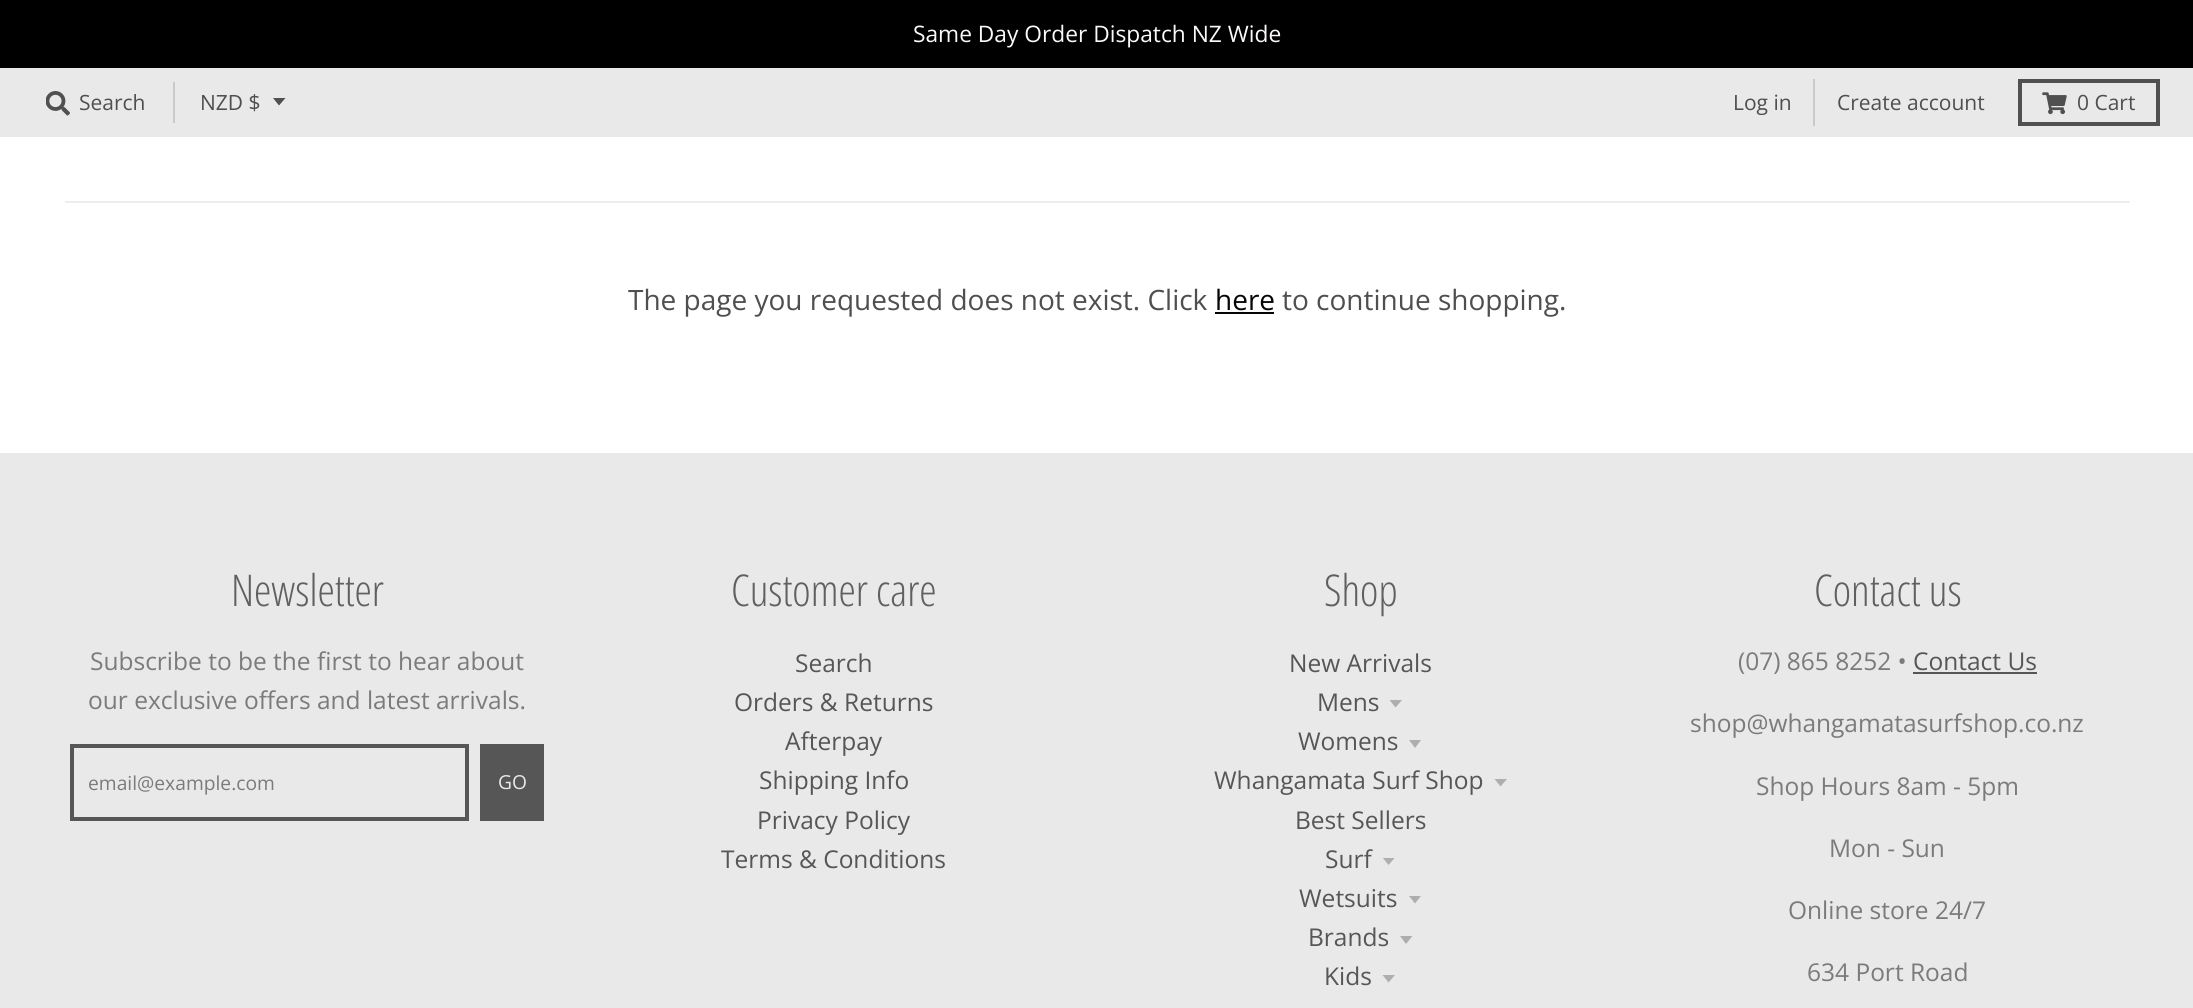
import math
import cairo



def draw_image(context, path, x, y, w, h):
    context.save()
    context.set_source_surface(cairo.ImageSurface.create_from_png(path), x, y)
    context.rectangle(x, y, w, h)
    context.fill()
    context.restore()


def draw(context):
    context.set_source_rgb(1, 1, 1)
    context.paint()
    context.set_source_rgb(0, 0, 0)
    context.rectangle(0, 0, 2193, 68)
    context.fill()
    context.set_source_rgb(233 / 255, 233 / 255, 233 / 255)
    context.rectangle(0, 68, 2193, 69)
    context.fill()
    draw_image(context, "images/1.png", 46, 91, 24, 25)
    context.set_source_rgb(202 / 255, 202 / 255, 202 / 255)
    context.rectangle(173, 82, 2, 41)
    context.fill()
    context.set_source_rgb(80 / 255, 80 / 255, 80 / 255)
    context.new_path()
    context.move_to(273, 98)
    context.line_to(279, 105.5)
    context.line_to(285.5, 98)
    context.close_path()
    context.fill()
    context.set_source_rgb(202 / 255, 202 / 255, 202 / 255)
    context.rectangle(1813, 79, 2, 47)
    context.fill()
    context.rectangle(2020, 81, 138, 43)
    context.set_source_rgb(80 / 255, 80 / 255, 80 / 255)
    context.set_line_width(4)
    context.stroke()
    draw_image(context, "images/2.png", 2042, 92, 25, 23)
    context.set_source_rgb(237 / 255, 237 / 255, 237 / 255)
    context.rectangle(65, 201, 2065, 2)
    context.fill()
    context.set_source_rgb(5 / 255, 5 / 255, 5 / 255)
    context.rectangle(1215, 312, 59, 2)
    context.fill()
    context.set_source_rgb(233 / 255, 233 / 255, 233 / 255)
    context.rectangle(0, 453, 2193, 555)
    context.fill()
    context.rectangle(72, 746, 395, 73)
    context.set_source_rgb(86 / 255, 86 / 255, 86 / 255)
    context.stroke()
    context.rectangle(480, 744, 64, 77)
    context.fill()
    context.set_source_rgb(174 / 255, 174 / 255, 174 / 255)
    context.new_path()
    context.move_to(1389.5, 700)
    context.line_to(1395.5, 707.5)
    context.line_to(1402, 700)
    context.close_path()
    context.fill()
    context.new_path()
    context.move_to(1409, 740)
    context.line_to(1415, 748)
    context.line_to(1421, 740)
    context.close_path()
    context.fill()
    context.new_path()
    context.move_to(1494.5, 779)
    context.line_to(1500.5, 786.5)
    context.line_to(1507, 779)
    context.close_path()
    context.fill()
    context.save()
    context.rectangle(1383, 858, 14, 8)
    context.clip()
    context.new_path()
    context.move_to(1382.5, 857.5)
    context.line_to(1388.5, 865)
    context.line_to(1395, 857.5)
    context.close_path()
    context.fill()
    context.restore()
    context.new_path()
    context.move_to(1409, 896)
    context.line_to(1415, 903.5)
    context.line_to(1421, 896)
    context.close_path()
    context.fill()
    context.new_path()
    context.move_to(1400, 936)
    context.line_to(1406, 944)
    context.line_to(1412.5, 936)
    context.close_path()
    context.fill()
    context.new_path()
    context.move_to(1382.5, 975)
    context.line_to(1388.5, 982.5)
    context.line_to(1395, 975)
    context.close_path()
    context.fill()
    context.set_source_rgb(86 / 255, 86 / 255, 86 / 255)
    context.rectangle(1913, 672, 124, 2)
    context.fill()
    context.select_font_face("Open Sans")
    context.set_font_size(22.75)
    context.set_source_rgb(252 / 255, 249 / 255, 249 / 255)
    context.move_to(913, 42)
    context.show_text("Same Day Order Dispatch NZ Wide")
    context.set_font_size(21)
    context.set_source_rgb(79 / 255, 79 / 255, 79 / 255)
    context.move_to(79, 110)
    context.show_text("Search")
    context.move_to(200, 110)
    context.show_text("NZD $")
    context.move_to(1733, 110)
    context.show_text("Log in")
    context.move_to(1837, 110)
    context.show_text("Create account")
    context.move_to(2077, 110)
    context.show_text("0 Cart")
    context.set_font_size(28)
    context.move_to(628, 310)
    context.show_text("The page you requested does not exist. Click")
    context.set_source_rgb(5 / 255, 5 / 255, 5 / 255)
    context.move_to(1215, 310)
    context.show_text("here")
    context.set_source_rgb(79 / 255, 79 / 255, 79 / 255)
    context.move_to(1282, 310)
    context.show_text("to continue shopping.")
    context.select_font_face("Open Sans Condensed Light")
    context.set_font_size(43.75)
    context.set_source_rgb(96 / 255, 96 / 255, 96 / 255)
    context.move_to(231, 606)
    context.show_text("Newsletter")
    context.select_font_face("Open Sans")
    context.set_font_size(24.5)
    context.set_source_rgb(123 / 255, 123 / 255, 123 / 255)
    context.move_to(90, 670)
    context.show_text("Subscribe to be the first to hear about")
    context.move_to(88, 709)
    context.show_text("our exclusive offers and latest arrivals.")
    context.set_font_size(19.25)
    context.move_to(88, 790)
    context.show_text("email@example.com")
    context.set_source_rgb(233 / 255, 233 / 255, 233 / 255)
    context.move_to(498, 789)
    context.show_text("GO")
    context.select_font_face("Open Sans Condensed Light")
    context.set_font_size(43.75)
    context.set_source_rgb(96 / 255, 96 / 255, 96 / 255)
    context.move_to(731, 606)
    context.show_text("Customer care")
    context.select_font_face("Open Sans")
    context.set_font_size(24.5)
    context.set_source_rgb(86 / 255, 86 / 255, 86 / 255)
    context.move_to(795, 672)
    context.show_text("Search")
    context.move_to(734, 711)
    context.show_text("Orders & Returns")
    context.move_to(785, 750)
    context.show_text("Afterpay")
    context.move_to(759, 789)
    context.show_text("Shipping Info")
    context.move_to(757, 829)
    context.show_text("Privacy Policy")
    context.move_to(721, 868)
    context.show_text("Terms & Conditions")
    context.select_font_face("Open Sans Condensed Light")
    context.set_font_size(43.75)
    context.set_source_rgb(96 / 255, 96 / 255, 96 / 255)
    context.move_to(1324, 606)
    context.show_text("Shop")
    context.select_font_face("Open Sans")
    context.set_font_size(24.5)
    context.set_source_rgb(86 / 255, 86 / 255, 86 / 255)
    context.move_to(1289, 672)
    context.show_text("New Arrivals")
    context.move_to(1317, 711)
    context.show_text("Mens")
    context.move_to(1298, 750)
    context.show_text("Womens")
    context.move_to(1214, 789)
    context.show_text("Whangamata Surf Shop")
    context.move_to(1295, 829)
    context.show_text("Best Sellers")
    context.move_to(1325, 868)
    context.show_text("Surf")
    context.move_to(1299, 907)
    context.show_text("Wetsuits")
    context.move_to(1308, 946)
    context.show_text("Brands")
    context.move_to(1324, 985)
    context.show_text("Kids")
    context.select_font_face("Open Sans Condensed Light")
    context.set_font_size(43.75)
    context.set_source_rgb(96 / 255, 96 / 255, 96 / 255)
    context.move_to(1814, 606)
    context.show_text("Contact us")
    context.select_font_face("Open Sans")
    context.set_font_size(24.5)
    context.set_source_rgb(123 / 255, 123 / 255, 123 / 255)
    context.move_to(1738, 670)
    context.show_text("(07) 865 8252 •")
    context.set_source_rgb(86 / 255, 86 / 255, 86 / 255)
    context.move_to(1913, 670)
    context.show_text("Contact Us")
    context.set_source_rgb(123 / 255, 123 / 255, 123 / 255)
    context.move_to(1690, 732)
    context.show_text("shop@whangamatasurfshop.co.nz")
    context.move_to(1756, 795)
    context.show_text("Shop Hours 8am - 5pm")
    context.move_to(1829, 857)
    context.show_text("Mon - Sun")
    context.move_to(1788, 919)
    context.show_text("Online store 24/7")
    context.move_to(1807, 981)
    context.show_text("634 Port Road")


surface = cairo.ImageSurface(cairo.Format.RGB24, 2193, 1008)
context = cairo.Context(surface)
options = cairo.FontOptions()
options.set_hint_metrics(cairo.HintMetrics.OFF)
options.set_hint_style(cairo.HintStyle.NONE)
context.set_font_options(options)
context.set_miter_limit(4)
draw(context)
surface.write_to_png("out.png")
